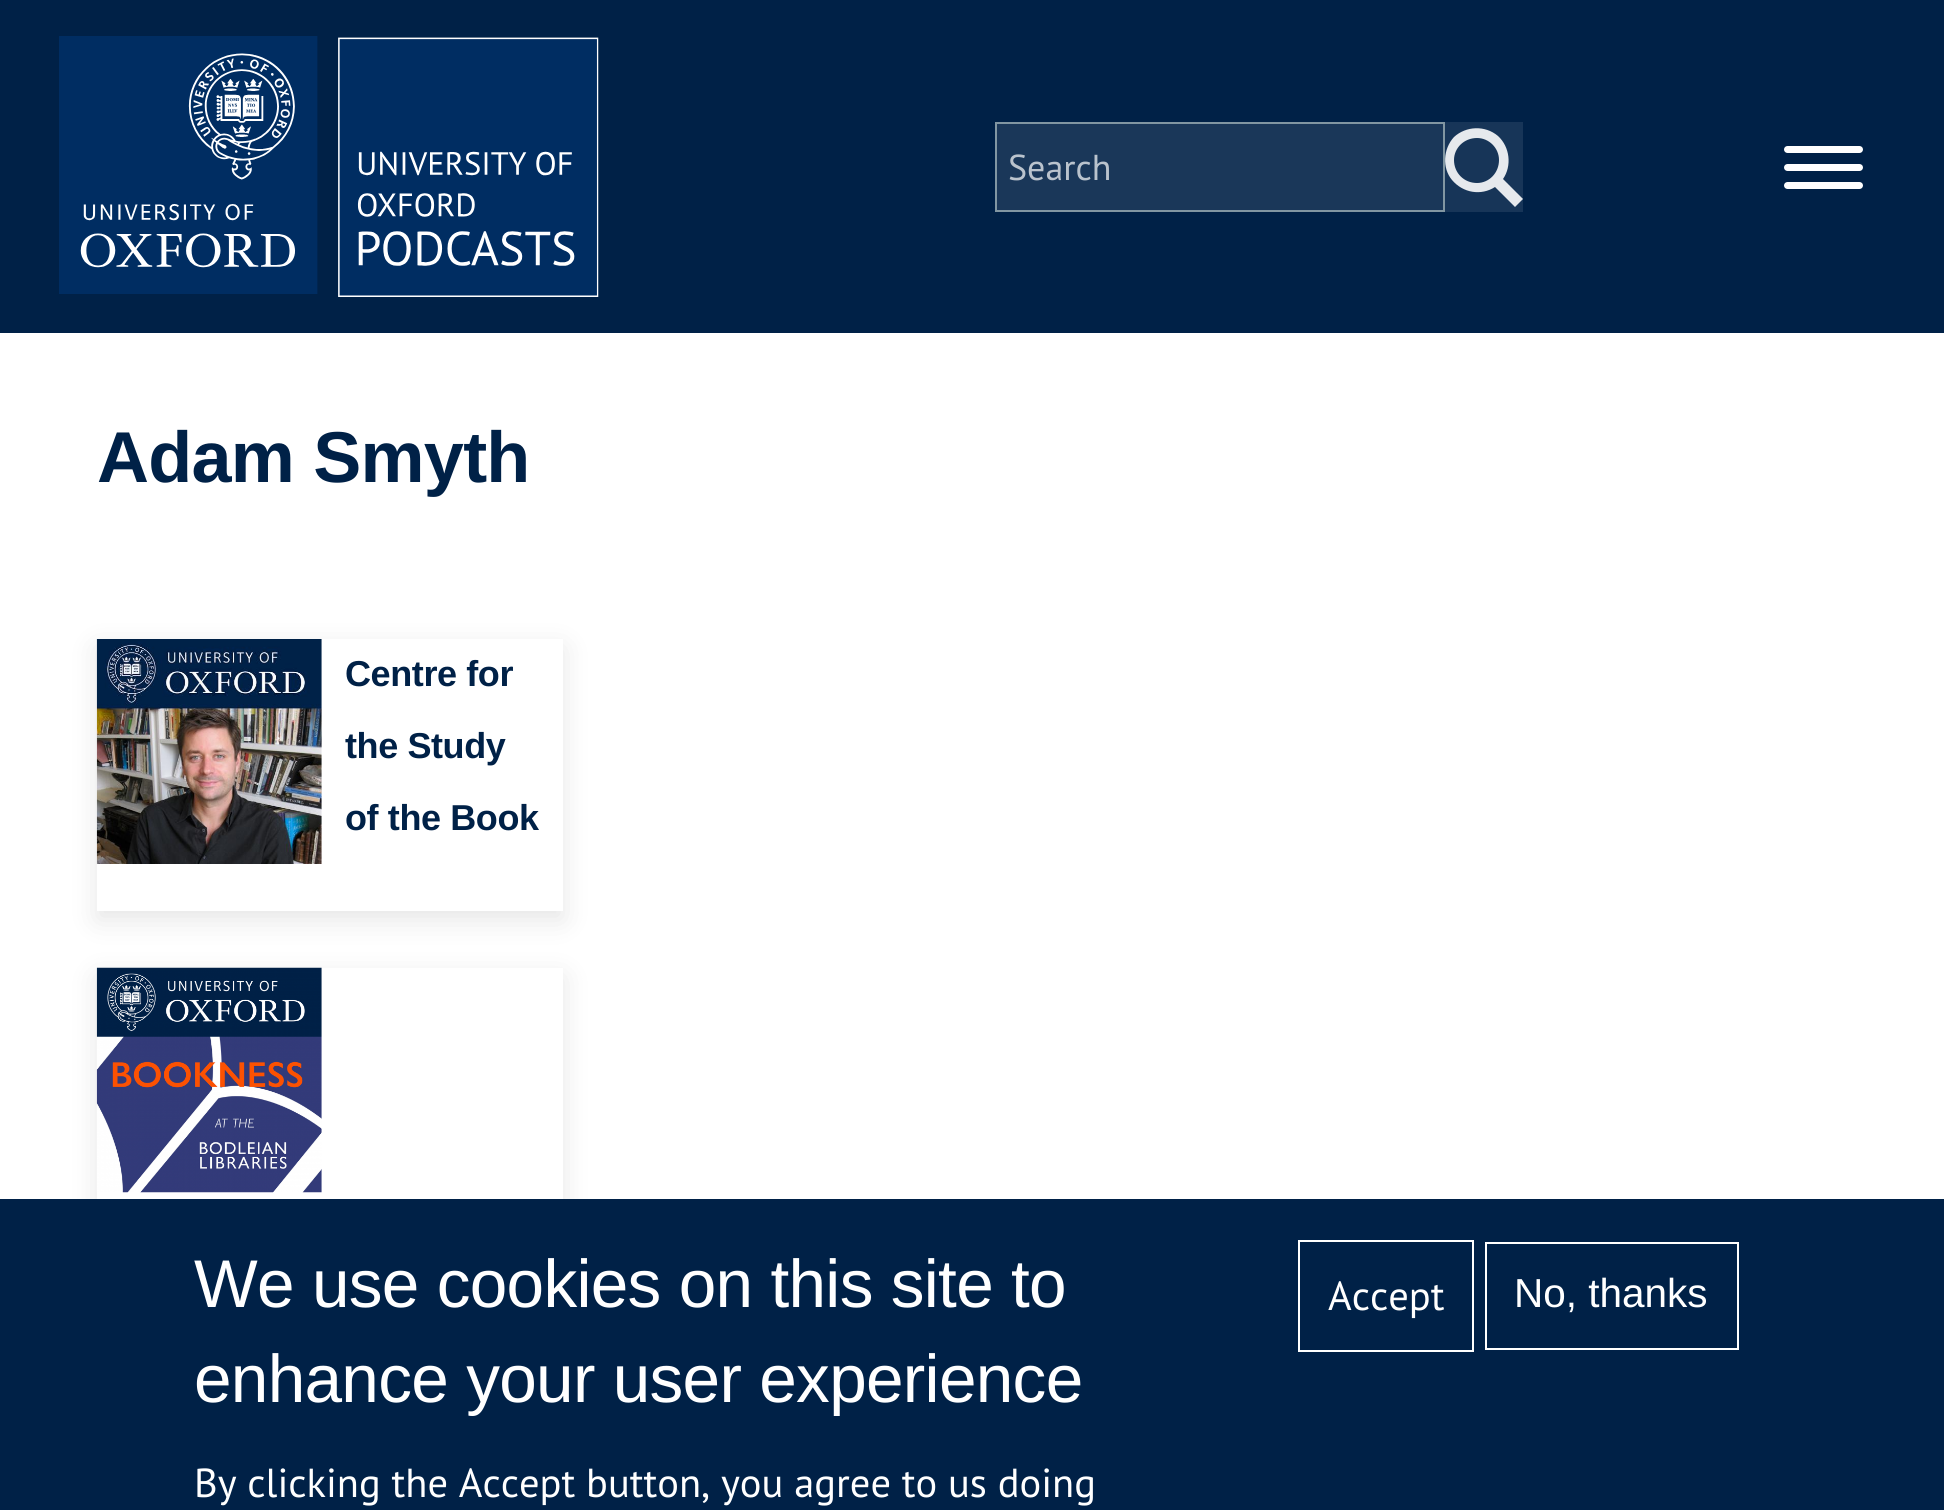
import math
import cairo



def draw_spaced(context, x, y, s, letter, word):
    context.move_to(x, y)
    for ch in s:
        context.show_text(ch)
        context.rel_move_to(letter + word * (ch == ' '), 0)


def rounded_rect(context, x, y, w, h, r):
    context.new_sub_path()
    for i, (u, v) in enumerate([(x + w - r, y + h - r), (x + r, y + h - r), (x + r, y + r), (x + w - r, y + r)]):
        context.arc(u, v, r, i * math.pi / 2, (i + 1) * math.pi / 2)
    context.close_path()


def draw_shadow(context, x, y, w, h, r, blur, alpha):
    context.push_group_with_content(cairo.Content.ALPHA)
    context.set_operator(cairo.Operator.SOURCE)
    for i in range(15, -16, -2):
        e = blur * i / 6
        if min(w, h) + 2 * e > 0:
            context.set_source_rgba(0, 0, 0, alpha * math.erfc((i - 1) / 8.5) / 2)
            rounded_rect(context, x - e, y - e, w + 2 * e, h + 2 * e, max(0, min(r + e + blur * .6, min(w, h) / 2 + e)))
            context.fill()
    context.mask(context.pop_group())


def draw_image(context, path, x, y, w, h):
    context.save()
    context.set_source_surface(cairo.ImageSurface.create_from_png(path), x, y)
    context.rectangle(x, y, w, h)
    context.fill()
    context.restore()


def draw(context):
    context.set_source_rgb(1, 1, 1)
    context.paint()
    context.set_source_rgb(0, 33 / 255, 71 / 255)
    context.rectangle(0, 0, 1944, 333)
    context.fill()
    draw_image(context, "images/1.png", 59, 36, 540, 261)
    context.set_source_rgb(26 / 255, 55 / 255, 89 / 255)
    context.rectangle(996, 123, 448, 88)
    context.fill_preserve()
    context.set_source_rgb(129 / 255, 150 / 255, 162 / 255)
    context.stroke()
    context.set_source_rgb(23 / 255, 53 / 255, 88 / 255)
    context.rectangle(1445, 122, 78, 90)
    context.fill()
    context.set_source_rgb(230 / 255, 233 / 255, 237 / 255)
    context.new_path()
    context.move_to(1523, 199)
    context.line_to(1503, 179)
    context.curve_to(1512, 166, 1510, 147, 1498, 136)
    context.curve_to(1485, 125, 1466, 126, 1454, 137)
    context.curve_to(1443, 149, 1442, 168, 1452, 180)
    context.curve_to(1463, 193, 1481, 196, 1495, 187)
    context.line_to(1515, 207)
    context.close_path()
    context.move_to(1454, 160)
    context.curve_to(1454, 148, 1464, 138, 1477, 138)
    context.curve_to(1489, 138, 1499, 148, 1499, 160)
    context.curve_to(1499, 173, 1489, 183, 1477, 183)
    context.curve_to(1464, 183, 1454, 173, 1454, 160)
    context.close_path()
    context.fill()
    context.set_source_rgb(1, 1, 1)
    rounded_rect(context, 1784, 164, 79, 7, 3.5)
    context.fill()
    rounded_rect(context, 1784, 146, 79, 7, 3.5)
    context.fill()
    rounded_rect(context, 1784, 182, 79, 7, 3.5)
    context.fill()
    context.save()
    context.set_fill_rule(cairo.FillRule.EVEN_ODD)
    context.new_path()
    context.move_to(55, 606)
    context.line_to(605, 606)
    context.line_to(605, 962)
    context.line_to(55, 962)
    context.close_path()
    context.move_to(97, 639)
    context.line_to(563, 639)
    context.line_to(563, 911)
    context.line_to(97, 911)
    context.close_path()
    context.clip()
    context.set_source_rgb(0, 0, 0)
    draw_shadow(context, 97, 648, 466, 272, 0, 13.5, 0.1)
    context.restore()
    draw_image(context, "images/2.png", 96, 639, 226, 225)
    context.save()
    context.set_fill_rule(cairo.FillRule.EVEN_ODD)
    context.new_path()
    context.move_to(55, 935)
    context.line_to(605, 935)
    context.line_to(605, 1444)
    context.line_to(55, 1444)
    context.close_path()
    context.move_to(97, 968)
    context.line_to(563, 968)
    context.line_to(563, 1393)
    context.line_to(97, 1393)
    context.close_path()
    context.clip()
    context.set_source_rgb(0, 0, 0)
    draw_shadow(context, 97, 977, 466, 425, 0, 13.5, 0.1)
    context.restore()
    draw_image(context, "images/3.png", 96, 967, 226, 226)
    context.set_source_rgb(0, 33 / 255, 71 / 255)
    context.rectangle(0, 1199, 1944, 311)
    context.fill()
    context.rectangle(1299, 1241, 174, 110)
    context.set_source_rgb(1, 1, 1)
    context.stroke()
    context.rectangle(1486, 1243, 252, 106)
    context.stroke()
    context.select_font_face("PT Sans")
    context.set_font_size(36)
    context.set_source_rgb(186 / 255, 195 / 255, 205 / 255)
    context.move_to(1008, 180)
    context.show_text("Search")
    context.select_font_face("Liberation Sans", cairo.FontSlant.NORMAL, cairo.FontWeight.BOLD)
    context.set_font_size(72)
    context.set_source_rgb(0, 33 / 255, 71 / 255)
    draw_spaced(context, 97, 482, "Adam Smyth", -0.75, 0)
    context.set_font_size(36)
    draw_spaced(context, 345, 686, "Centre for", -0.4, 0)
    draw_spaced(context, 345, 758, "the Study", -0.4, 0)
    draw_spaced(context, 345, 830, "of the Book", -0.4, 0)
    context.select_font_face("Liberation Sans")
    context.set_font_size(67.5)
    context.set_source_rgb(1, 1, 1)
    draw_spaced(context, 194, 1307, "We use cookies on this site to", -0.7, 0)
    draw_spaced(context, 194, 1402, "enhance your user experience", -0.7, 0)
    context.select_font_face("PT Sans")
    context.set_font_size(40.5)
    context.move_to(194, 1497)
    context.show_text("By clicking the Accept button, you agree to us doing")
    context.move_to(1328, 1310)
    context.show_text("Accept")
    context.select_font_face("Liberation Sans")
    context.move_to(1514, 1307)
    context.show_text("No, thanks")


surface = cairo.ImageSurface(cairo.Format.RGB24, 1944, 1510)
context = cairo.Context(surface)
options = cairo.FontOptions()
options.set_hint_metrics(cairo.HintMetrics.OFF)
options.set_hint_style(cairo.HintStyle.NONE)
context.set_font_options(options)
context.set_miter_limit(4)
draw(context)
surface.write_to_png("out.png")
